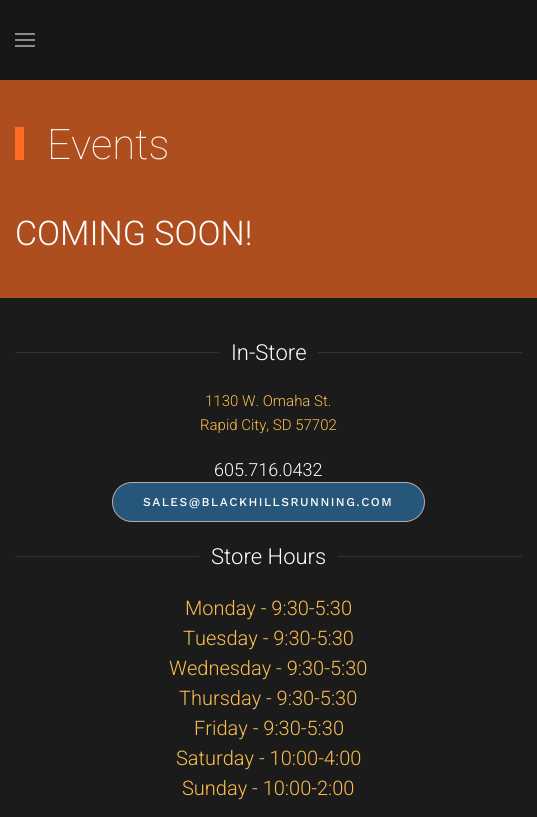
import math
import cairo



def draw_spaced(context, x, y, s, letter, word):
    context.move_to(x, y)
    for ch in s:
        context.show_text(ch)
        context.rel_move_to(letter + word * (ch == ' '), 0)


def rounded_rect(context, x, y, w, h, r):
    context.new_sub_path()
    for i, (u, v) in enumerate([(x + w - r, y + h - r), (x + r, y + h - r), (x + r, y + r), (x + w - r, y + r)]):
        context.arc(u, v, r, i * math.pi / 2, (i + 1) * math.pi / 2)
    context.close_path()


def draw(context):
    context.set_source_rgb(23 / 255, 23 / 255, 23 / 255)
    context.paint()
    context.set_source_rgb(139 / 255, 139 / 255, 139 / 255)
    context.rectangle(15, 33, 20, 2)
    context.fill()
    context.rectangle(15, 39, 20, 2)
    context.fill()
    context.rectangle(15, 45, 20, 2)
    context.fill()
    context.set_source_rgb(174 / 255, 78 / 255, 30 / 255)
    context.rectangle(0, 80, 537, 218)
    context.fill()
    context.set_source_rgb(1, 108 / 255, 34 / 255)
    context.rectangle(15, 127, 9, 33)
    context.fill()
    context.set_source_rgb(27 / 255, 27 / 255, 27 / 255)
    context.rectangle(0, 298, 537, 519)
    context.fill()
    context.set_source_rgb(50 / 255, 50 / 255, 50 / 255)
    context.rectangle(15, 352, 204, 1)
    context.fill()
    context.rectangle(318, 352, 204, 1)
    context.fill()
    context.set_source_rgb(39 / 255, 86 / 255, 123 / 255)
    rounded_rect(context, 112.5, 482.5, 312, 39, 19.5)
    context.fill_preserve()
    context.set_source_rgb(178 / 255, 172 / 255, 172 / 255)
    context.set_line_width(1)
    context.stroke()
    context.set_source_rgb(50 / 255, 50 / 255, 50 / 255)
    context.rectangle(15, 556, 184, 1)
    context.fill()
    context.rectangle(338, 556, 184, 1)
    context.fill()
    context.select_font_face("Roboto Thin")
    context.set_font_size(42)
    context.set_source_rgb(1, 1, 1)
    context.move_to(47, 159)
    context.show_text("Events")
    context.select_font_face("Roboto Light")
    context.set_font_size(34)
    context.move_to(15, 245)
    context.show_text("COMING SOON!")
    context.set_font_size(22)
    context.move_to(231, 360)
    context.show_text("In-Store")
    context.set_font_size(15)
    context.set_source_rgb(251 / 255, 190 / 255, 77 / 255)
    context.move_to(205, 406)
    context.show_text("1130 W. Omaha St.")
    context.move_to(200, 430)
    context.show_text("Rapid City, SD 57702")
    context.set_font_size(18)
    context.set_source_rgb(1, 1, 1)
    context.move_to(214, 476)
    context.show_text("605.716.0432")
    context.select_font_face("Work Sans Medium")
    context.set_font_size(12)
    draw_spaced(context, 143, 506, "SALES@BLACKHILLSRUNNING.COM", 1.5, 0)
    context.select_font_face("Roboto Light")
    context.set_font_size(22)
    context.move_to(211, 564)
    context.show_text("Store Hours")
    context.set_font_size(20)
    context.set_source_rgb(251 / 255, 190 / 255, 77 / 255)
    context.move_to(185, 615)
    context.show_text("Monday - 9:30-5:30")
    context.move_to(183, 645)
    context.show_text("Tuesday - 9:30-5:30")
    context.move_to(169, 675)
    context.show_text("Wednesday - 9:30-5:30")
    context.move_to(179, 705)
    context.show_text("Thursday - 9:30-5:30")
    context.move_to(194, 735)
    context.show_text("Friday - 9:30-5:30")
    context.move_to(176, 765)
    context.show_text("Saturday - 10:00-4:00")
    context.move_to(182, 795)
    context.show_text("Sunday - 10:00-2:00")


surface = cairo.ImageSurface(cairo.Format.RGB24, 537, 817)
context = cairo.Context(surface)
options = cairo.FontOptions()
options.set_hint_metrics(cairo.HintMetrics.OFF)
options.set_hint_style(cairo.HintStyle.NONE)
context.set_font_options(options)
context.set_miter_limit(4)
draw(context)
surface.write_to_png("out.png")
